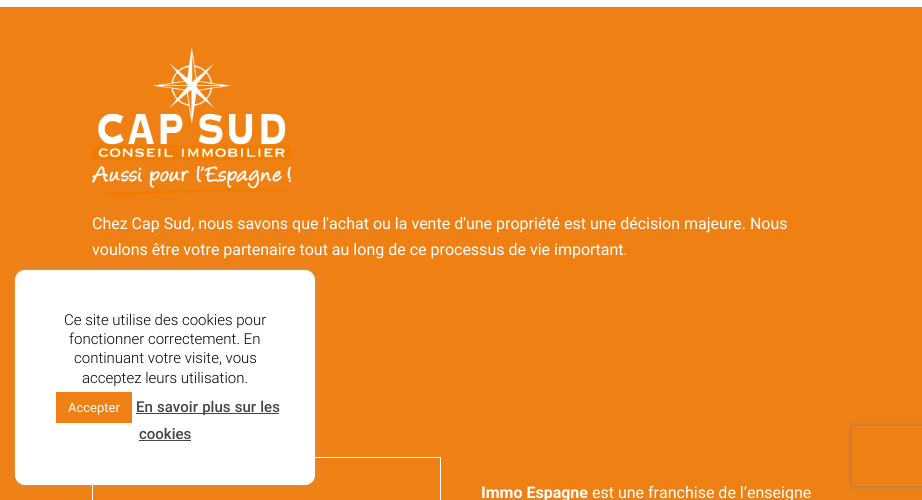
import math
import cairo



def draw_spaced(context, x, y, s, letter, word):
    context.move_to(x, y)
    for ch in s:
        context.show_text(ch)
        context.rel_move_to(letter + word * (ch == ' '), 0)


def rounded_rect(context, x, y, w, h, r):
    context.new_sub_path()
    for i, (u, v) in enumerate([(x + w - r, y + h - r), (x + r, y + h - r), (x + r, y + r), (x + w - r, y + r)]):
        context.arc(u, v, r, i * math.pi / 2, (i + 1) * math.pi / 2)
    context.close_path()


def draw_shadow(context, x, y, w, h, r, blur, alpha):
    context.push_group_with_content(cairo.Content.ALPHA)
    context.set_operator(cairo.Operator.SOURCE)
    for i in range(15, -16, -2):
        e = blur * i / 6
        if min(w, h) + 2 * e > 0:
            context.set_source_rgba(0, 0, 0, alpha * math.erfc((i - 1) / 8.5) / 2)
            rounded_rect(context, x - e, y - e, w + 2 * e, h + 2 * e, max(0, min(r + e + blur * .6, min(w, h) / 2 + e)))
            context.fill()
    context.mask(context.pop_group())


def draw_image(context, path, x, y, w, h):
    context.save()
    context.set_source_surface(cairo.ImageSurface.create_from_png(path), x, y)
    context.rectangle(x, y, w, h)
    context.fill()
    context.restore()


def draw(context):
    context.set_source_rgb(1, 1, 1)
    context.paint()
    context.set_source_rgb(239 / 255, 128 / 255, 19 / 255)
    context.rectangle(0, 7, 922, 493)
    context.fill()
    draw_image(context, "images/1.png", 92, 47, 199, 150)
    context.rectangle(92.5, 457.5, 348, 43)
    context.set_source_rgb(1, 1, 1)
    context.set_line_width(1)
    context.stroke()
    context.set_source_rgb(172 / 255, 171 / 255, 171 / 255)
    draw_shadow(context, 15, 269, 300, 215, 10, 5, 0.3)
    context.set_source_rgb(1, 1, 1)
    rounded_rect(context, 15, 270, 300, 215, 10)
    context.fill()
    context.set_source_rgb(239 / 255, 128 / 255, 19 / 255)
    context.rectangle(56, 392, 76, 31)
    context.fill()
    context.set_source_rgb(68 / 255, 68 / 255, 68 / 255)
    context.rectangle(136, 413, 143, 1)
    context.fill()
    context.rectangle(139, 440, 52, 1)
    context.fill()
    context.save()
    context.set_fill_rule(cairo.FillRule.EVEN_ODD)
    context.new_path()
    context.move_to(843, 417)
    context.line_to(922, 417)
    context.line_to(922, 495)
    context.line_to(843, 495)
    context.close_path()
    context.move_to(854, 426)
    context.line_to(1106, 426)
    context.curve_to(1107, 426, 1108, 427, 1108, 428)
    context.line_to(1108, 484)
    context.curve_to(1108, 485, 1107, 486, 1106, 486)
    context.line_to(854, 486)
    context.curve_to(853, 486, 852, 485, 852, 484)
    context.line_to(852, 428)
    context.curve_to(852, 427, 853, 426, 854, 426)
    context.close_path()
    context.clip()
    context.set_source_rgb(128 / 255, 128 / 255, 128 / 255)
    draw_shadow(context, 852, 426, 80, 60, 2, 2.5, 1)
    context.restore()
    context.select_font_face("Roboto")
    context.set_font_size(16)
    context.set_source_rgb(1, 1, 1)
    context.move_to(92, 229)
    context.show_text("Chez Cap Sud, nous savons que l'achat ou la vente d'une propriété est une décision majeure. Nous")
    context.move_to(92, 255)
    context.show_text("voulons être votre partenaire tout au long de ce processus de vie important.")
    context.select_font_face("Roboto", cairo.FontSlant.NORMAL, cairo.FontWeight.BOLD)
    context.move_to(481, 498)
    context.show_text("Immo Espagne")
    context.select_font_face("Roboto")
    context.move_to(592, 498)
    context.show_text("est une franchise de l’enseigne")
    context.select_font_face("Roboto Light")
    context.set_font_size(15)
    context.set_source_rgb(0, 0, 0)
    context.move_to(64, 325)
    context.show_text("Ce site utilise des cookies pour")
    context.move_to(69, 344)
    context.show_text("fonctionner correctement. En")
    context.move_to(74, 363)
    context.show_text("continuant votre visite, vous")
    context.move_to(82, 383)
    context.show_text("acceptez leurs utilisation.")
    context.select_font_face("Roboto")
    context.set_font_size(13)
    context.set_source_rgb(1, 1, 1)
    context.move_to(68, 412)
    context.show_text("Accepter")
    context.select_font_face("Roboto Medium")
    context.set_font_size(15)
    context.set_source_rgb(68 / 255, 68 / 255, 68 / 255)
    draw_spaced(context, 136, 412, "En savoir plus sur les", 0, 0.5)
    context.move_to(139, 439)
    context.show_text("cookies")


surface = cairo.ImageSurface(cairo.Format.RGB24, 922, 500)
context = cairo.Context(surface)
options = cairo.FontOptions()
options.set_hint_metrics(cairo.HintMetrics.OFF)
options.set_hint_style(cairo.HintStyle.NONE)
context.set_font_options(options)
context.set_miter_limit(4)
draw(context)
surface.write_to_png("out.png")
